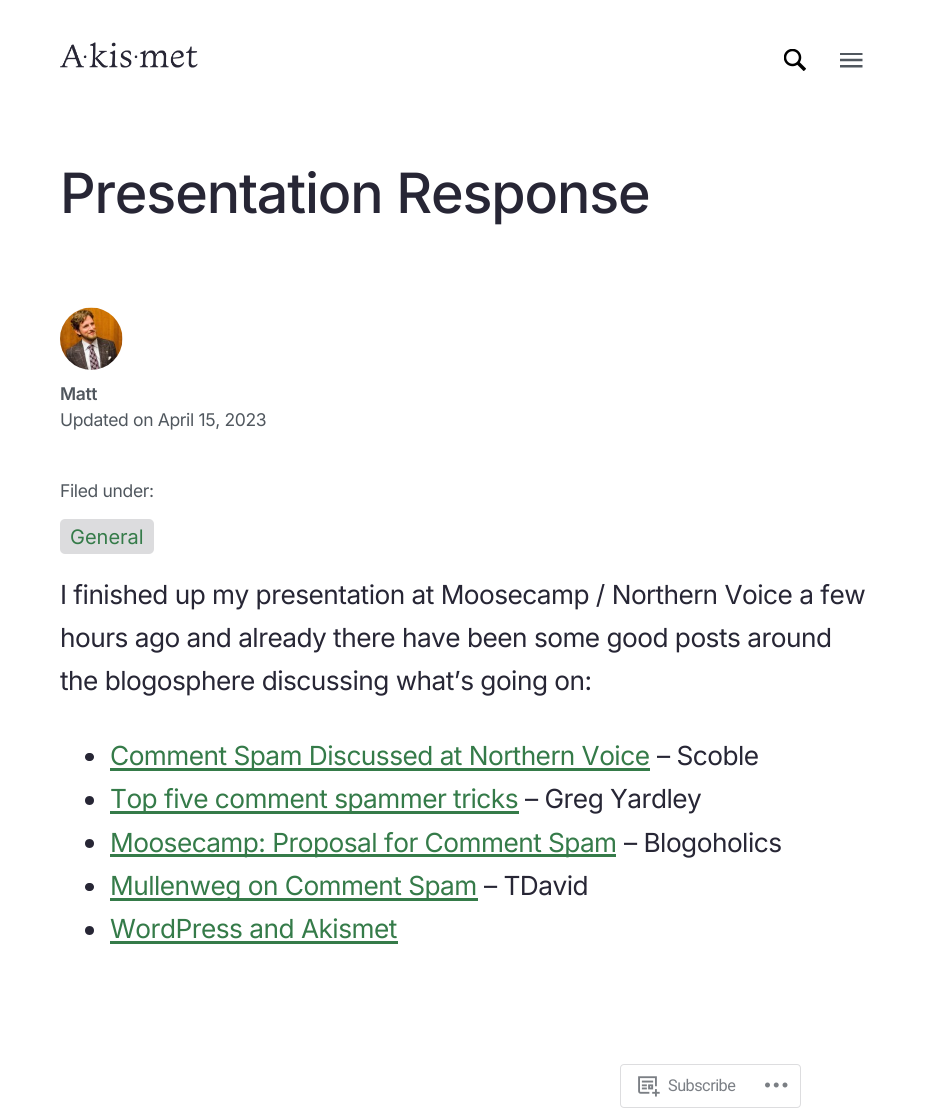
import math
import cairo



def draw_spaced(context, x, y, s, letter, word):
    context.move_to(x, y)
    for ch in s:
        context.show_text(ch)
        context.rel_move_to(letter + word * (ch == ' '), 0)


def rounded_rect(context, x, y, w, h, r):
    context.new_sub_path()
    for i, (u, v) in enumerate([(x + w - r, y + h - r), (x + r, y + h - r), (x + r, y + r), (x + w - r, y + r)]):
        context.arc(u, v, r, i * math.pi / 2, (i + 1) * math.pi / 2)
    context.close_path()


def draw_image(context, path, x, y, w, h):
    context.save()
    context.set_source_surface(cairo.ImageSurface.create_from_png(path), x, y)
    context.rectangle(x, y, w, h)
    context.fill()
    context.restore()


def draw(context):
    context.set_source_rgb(1, 1, 1)
    context.paint()
    draw_image(context, "images/1.png", 60, 42, 138, 26)
    draw_image(context, "images/2.png", 784, 49, 22, 22)
    draw_image(context, "images/3.png", 840, 53, 23, 15)
    draw_image(context, "images/4.png", 60, 307, 63, 63)
    context.set_source_rgb(220 / 255, 220 / 255, 222 / 255)
    rounded_rect(context, 60, 519, 94, 35, 5)
    context.fill()
    context.set_source_rgb(39 / 255, 38 / 255, 53 / 255)
    rounded_rect(context, 85, 753, 9, 8, 4)
    context.fill()
    context.set_source_rgb(53 / 255, 123 / 255, 73 / 255)
    context.rectangle(110, 768, 540, 3)
    context.fill()
    context.set_source_rgb(39 / 255, 38 / 255, 53 / 255)
    context.arc(89.5, 800.5, 4.5, 0, 2 * math.pi)
    context.fill()
    context.set_source_rgb(53 / 255, 123 / 255, 73 / 255)
    context.rectangle(110, 811, 409, 3)
    context.fill()
    context.set_source_rgb(39 / 255, 38 / 255, 53 / 255)
    context.arc(89.5, 843.5, 4.5, 0, 2 * math.pi)
    context.fill()
    context.set_source_rgb(53 / 255, 123 / 255, 73 / 255)
    context.rectangle(110, 854, 506, 3)
    context.fill()
    context.set_source_rgb(39 / 255, 38 / 255, 53 / 255)
    rounded_rect(context, 85, 883, 9, 8, 4)
    context.fill()
    context.set_source_rgb(53 / 255, 123 / 255, 73 / 255)
    context.rectangle(110, 898, 368, 3)
    context.fill()
    context.set_source_rgb(39 / 255, 38 / 255, 53 / 255)
    context.arc(89.5, 930.5, 4.5, 0, 2 * math.pi)
    context.fill()
    context.set_source_rgb(53 / 255, 123 / 255, 73 / 255)
    context.rectangle(110, 941, 288, 3)
    context.fill()
    rounded_rect(context, 620.5, 1064.5, 180, 43, 3.5)
    context.set_source_rgb(221 / 255, 221 / 255, 223 / 255)
    context.set_line_width(1)
    context.stroke()
    draw_image(context, "images/5.png", 638, 1076, 22, 21)
    draw_image(context, "images/6.png", 765, 1082, 23, 6)
    context.select_font_face("Inter Medium")
    context.set_font_size(55.5)
    context.set_source_rgb(39 / 255, 38 / 255, 53 / 255)
    draw_spaced(context, 60, 213, "Presentation Response", -1.1, 0)
    context.select_font_face("Inter SemiBold")
    context.set_font_size(17.5)
    context.set_source_rgb(80 / 255, 87 / 255, 94 / 255)
    draw_spaced(context, 60, 400, "Matt", -0.35, 0)
    context.select_font_face("Inter")
    draw_spaced(context, 60, 426, "Updated on April 15, 2023", -0.35, 0)
    draw_spaced(context, 60, 497, "Filed under:", -0.35, 0)
    context.set_font_size(20)
    context.set_source_rgb(53 / 255, 123 / 255, 73 / 255)
    context.move_to(70, 544)
    context.show_text("General")
    context.set_font_size(26.25)
    context.set_source_rgb(39 / 255, 38 / 255, 53 / 255)
    draw_spaced(context, 60, 604, "I finished up my presentation at Moosecamp / Northern Voice a few", -0.53, 0)
    draw_spaced(context, 60, 647, "hours ago and already there have been some good posts around", -0.53, 0)
    draw_spaced(context, 60, 690, "the blogosphere discussing what’s going on:", -0.53, 0)
    context.set_source_rgb(53 / 255, 123 / 255, 73 / 255)
    draw_spaced(context, 110, 765, "Comment Spam Discussed at Northern Voice", -0.53, 0)
    context.set_source_rgb(39 / 255, 38 / 255, 53 / 255)
    draw_spaced(context, 657, 765, "– Scoble", -0.53, 0)
    context.set_source_rgb(53 / 255, 123 / 255, 73 / 255)
    draw_spaced(context, 110, 808, "Top five comment spammer tricks", -0.53, 0)
    context.set_source_rgb(39 / 255, 38 / 255, 53 / 255)
    draw_spaced(context, 525, 808, "– Greg Yardley", -0.53, 0)
    context.set_source_rgb(53 / 255, 123 / 255, 73 / 255)
    draw_spaced(context, 110, 852, "Moosecamp: Proposal for Comment Spam", -0.53, 0)
    context.set_source_rgb(39 / 255, 38 / 255, 53 / 255)
    draw_spaced(context, 624, 852, "– Blogoholics", -0.53, 0)
    context.set_source_rgb(53 / 255, 123 / 255, 73 / 255)
    draw_spaced(context, 110, 895, "Mullenweg on Comment Spam", -0.53, 0)
    context.set_source_rgb(39 / 255, 38 / 255, 53 / 255)
    draw_spaced(context, 484, 895, "– TDavid", -0.53, 0)
    context.set_source_rgb(53 / 255, 123 / 255, 73 / 255)
    draw_spaced(context, 110, 938, "WordPress and Akismet", -0.53, 0)
    context.select_font_face("Roboto")
    context.set_font_size(16.25)
    context.set_source_rgb(123 / 255, 127 / 255, 133 / 255)
    draw_spaced(context, 668, 1091, "Subscribe", -0.5, 0)


surface = cairo.ImageSurface(cairo.Format.RGB24, 926, 1120)
context = cairo.Context(surface)
options = cairo.FontOptions()
options.set_hint_metrics(cairo.HintMetrics.OFF)
options.set_hint_style(cairo.HintStyle.NONE)
context.set_font_options(options)
context.set_miter_limit(4)
draw(context)
surface.write_to_png("out.png")
